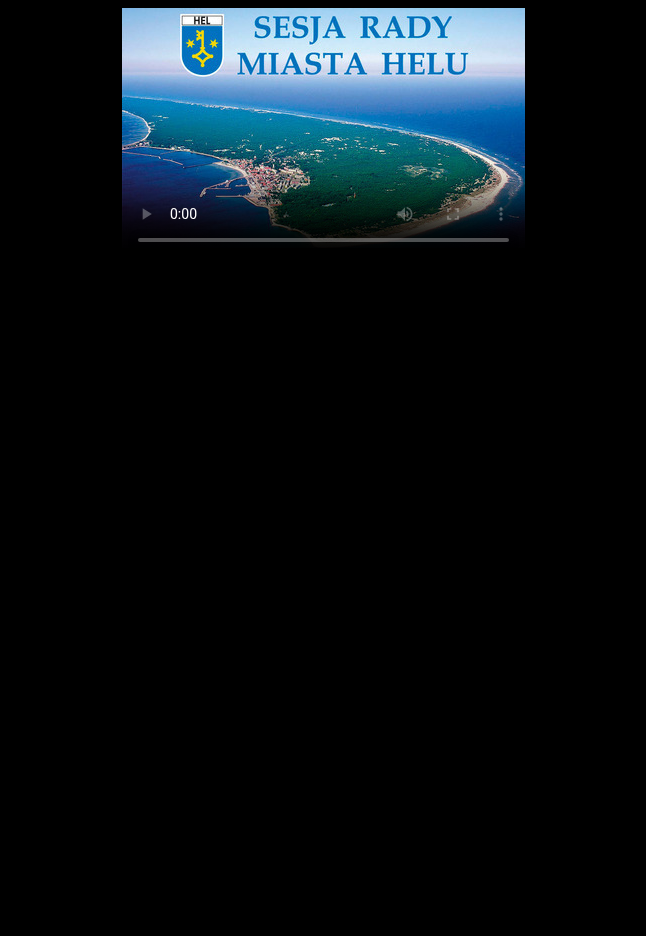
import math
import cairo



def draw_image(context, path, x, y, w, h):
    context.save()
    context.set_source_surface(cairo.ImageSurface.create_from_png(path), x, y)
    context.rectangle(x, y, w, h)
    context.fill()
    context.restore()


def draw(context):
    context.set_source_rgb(0, 0, 0)
    context.paint()
    draw_image(context, "images/1.png", 122, 8, 403, 240)


surface = cairo.ImageSurface(cairo.Format.RGB24, 646, 936)
context = cairo.Context(surface)
options = cairo.FontOptions()
options.set_hint_metrics(cairo.HintMetrics.OFF)
options.set_hint_style(cairo.HintStyle.NONE)
context.set_font_options(options)
context.set_miter_limit(4)
draw(context)
surface.write_to_png("out.png")
